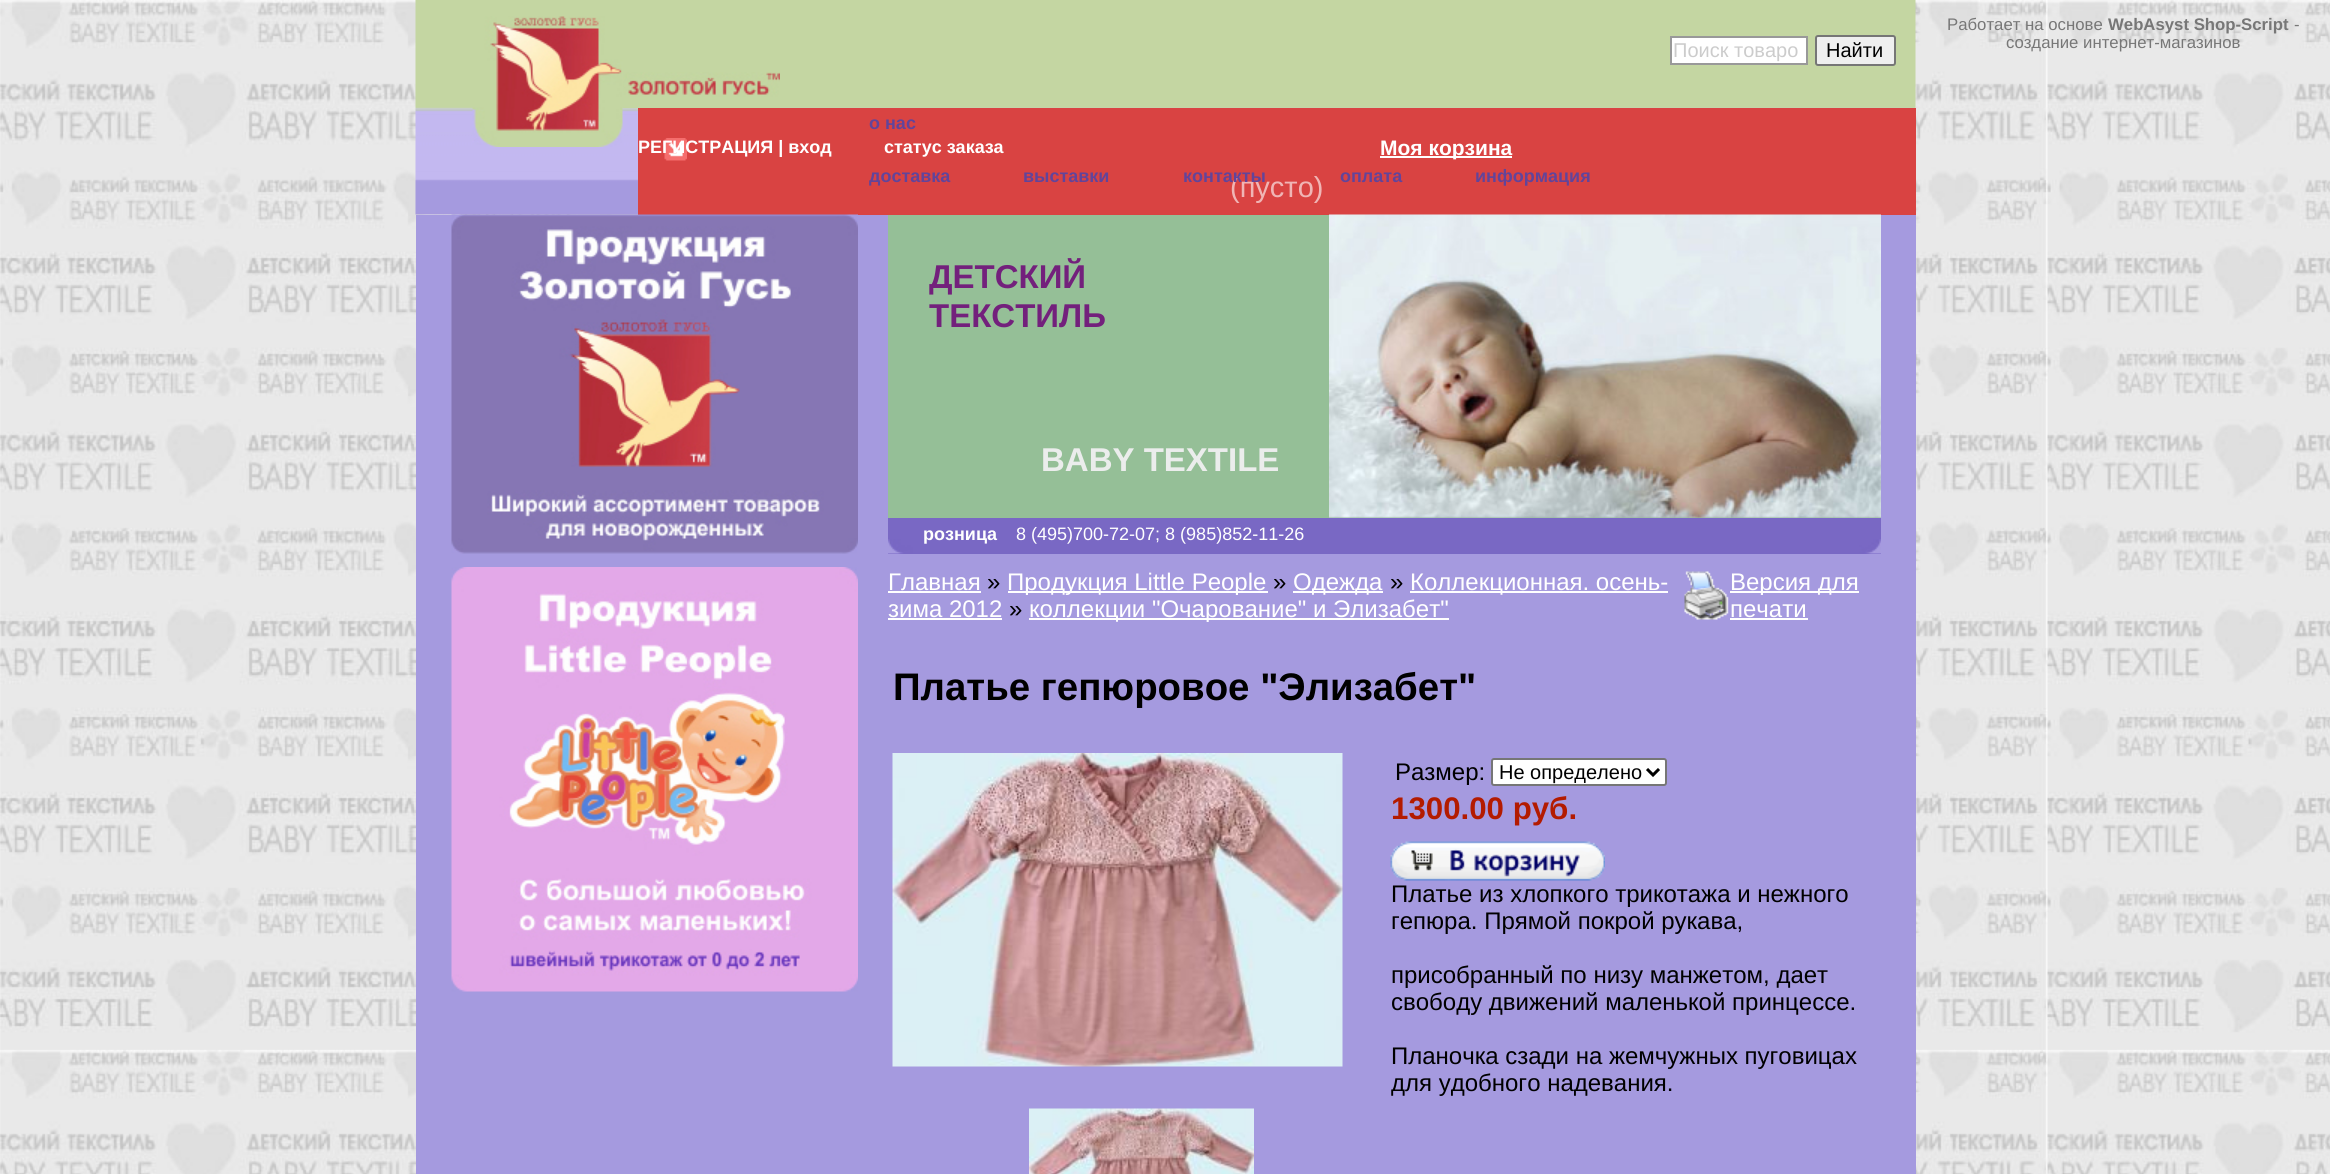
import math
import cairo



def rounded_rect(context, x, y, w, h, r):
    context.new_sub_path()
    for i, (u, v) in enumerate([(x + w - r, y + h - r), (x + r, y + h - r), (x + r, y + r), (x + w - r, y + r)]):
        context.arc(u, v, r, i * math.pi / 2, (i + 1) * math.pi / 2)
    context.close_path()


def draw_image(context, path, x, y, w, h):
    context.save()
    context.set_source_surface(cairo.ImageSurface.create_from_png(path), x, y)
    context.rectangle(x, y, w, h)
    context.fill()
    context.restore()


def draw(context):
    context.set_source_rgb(1, 1, 1)
    context.paint()
    draw_image(context, "images/1.png", 0, 0, 2330, 1174)
    draw_image(context, "images/2.png", 415, 0, 1501, 215)
    draw_image(context, "images/3.png", 472, 16, 151, 131)
    draw_image(context, "images/4.png", 623, 72, 157, 36)
    context.set_source_rgb(1, 1, 1)
    context.rectangle(1671, 37, 136, 27)
    context.fill_preserve()
    context.set_source_rgb(153 / 255, 153 / 255, 153 / 255)
    context.stroke()
    context.set_source_rgb(239 / 255, 239 / 255, 239 / 255)
    rounded_rect(context, 1816, 36, 79, 29, 2)
    context.fill_preserve()
    context.set_source_rgb(118 / 255, 118 / 255, 118 / 255)
    context.stroke()
    context.set_source_rgb(217 / 255, 67 / 255, 66 / 255)
    context.rectangle(638, 108, 1278, 107)
    context.fill()
    draw_image(context, "images/5.png", 664, 138, 23, 23)
    context.set_source_rgb(1, 1, 1)
    context.rectangle(1380, 156, 132, 2)
    context.fill()
    context.set_source_rgb(165 / 255, 154 / 255, 223 / 255)
    context.rectangle(416, 215, 1500, 959)
    context.fill()
    draw_image(context, "images/6.png", 451, 214, 407, 340)
    draw_image(context, "images/7.png", 451, 567, 407, 425)
    context.set_source_rgb(149 / 255, 191 / 255, 151 / 255)
    context.rectangle(888, 215, 993, 303)
    context.fill()
    draw_image(context, "images/8.png", 1329, 214, 552, 304)
    context.set_source_rgb(121 / 255, 104 / 255, 196 / 255)
    context.rectangle(888, 518, 993, 36)
    context.fill()
    draw_image(context, "images/9.png", 888, 539, 993, 15)
    context.set_source_rgb(1, 1, 1)
    context.rectangle(888, 591, 93, 2)
    context.fill()
    context.rectangle(1008, 591, 260, 2)
    context.fill()
    context.rectangle(1293, 591, 90, 2)
    context.fill()
    context.rectangle(1410, 591, 258, 2)
    context.fill()
    context.rectangle(888, 618, 114, 2)
    context.fill()
    context.rectangle(1029, 618, 420, 2)
    context.fill()
    draw_image(context, "images/10.png", 1684, 571, 45, 49)
    context.rectangle(1730, 591, 129, 2)
    context.fill()
    context.rectangle(1730, 618, 78, 2)
    context.fill()
    draw_image(context, "images/11.png", 892, 753, 451, 314)
    draw_image(context, "images/12.png", 1029, 1108, 225, 66)
    rounded_rect(context, 1492, 759, 174, 26, 2)
    context.fill_preserve()
    context.set_source_rgb(118 / 255, 118 / 255, 118 / 255)
    context.stroke()
    context.new_path()
    context.move_to(1647, 769)
    context.line_to(1653, 775)
    context.line_to(1659, 769)
    context.set_source_rgb(0, 0, 0)
    context.set_line_width(3)
    context.stroke()
    draw_image(context, "images/13.png", 1390, 841, 215, 40)
    context.select_font_face("Liberation Sans")
    context.set_font_size(16.75)
    context.set_source_rgb(119 / 255, 119 / 255, 119 / 255)
    context.move_to(1947, 30)
    context.show_text("Работает на основе")
    context.select_font_face("Liberation Sans", cairo.FontSlant.NORMAL, cairo.FontWeight.BOLD)
    context.move_to(2108, 30)
    context.show_text("WebAsyst Shop-Script")
    context.select_font_face("Liberation Sans")
    context.move_to(2294, 30)
    context.show_text("-")
    context.move_to(2006, 48)
    context.show_text("создание интернет-магазинов")
    context.set_font_size(20)
    context.set_source_rgb(204 / 255, 204 / 255, 204 / 255)
    context.move_to(1673, 57)
    context.show_text("Поиск товаро")
    context.set_source_rgb(0, 0, 0)
    context.move_to(1826, 57)
    context.show_text("Найти")
    context.select_font_face("Liberation Sans", cairo.FontSlant.NORMAL, cairo.FontWeight.BOLD)
    context.set_font_size(18)
    context.set_source_rgb(98 / 255, 68 / 255, 154 / 255)
    context.move_to(869, 129)
    context.show_text("о нас")
    context.save()
    context.rectangle(869, 134, 796, 52)
    context.clip()
    context.move_to(869, 182)
    context.show_text("доставка")
    context.restore()
    context.move_to(1023, 182)
    context.show_text("выставки")
    context.move_to(1340, 182)
    context.show_text("оплата")
    context.move_to(1475, 182)
    context.show_text("информация")
    context.set_source_rgb(1, 1, 1)
    context.move_to(638, 153)
    context.show_text("РЕГИСТРАЦИЯ | вход")
    context.move_to(884, 153)
    context.show_text("статус заказа")
    context.set_font_size(21)
    context.move_to(1380, 155)
    context.show_text("Моя корзина")
    context.select_font_face("Liberation Sans")
    context.set_font_size(29)
    context.set_source_rgb(240 / 255, 181 / 255, 181 / 255)
    context.move_to(1230, 197)
    context.show_text("(пусто)")
    context.select_font_face("Liberation Sans", cairo.FontSlant.NORMAL, cairo.FontWeight.BOLD)
    context.set_font_size(18)
    context.set_source_rgb(98 / 255, 68 / 255, 154 / 255)
    context.move_to(1183, 182)
    context.show_text("контакты")
    context.set_font_size(33)
    context.set_source_rgb(115 / 255, 32 / 255, 124 / 255)
    context.move_to(929, 288)
    context.show_text("ДЕТСКИЙ")
    context.move_to(929, 327)
    context.show_text("ТЕКСТИЛЬ")
    context.set_source_rgb(235 / 255, 237 / 255, 236 / 255)
    context.move_to(1041, 471)
    context.show_text("BABY TEXTILE")
    context.set_font_size(18)
    context.set_source_rgb(1, 1, 1)
    context.move_to(923, 540)
    context.show_text("розница")
    context.select_font_face("Liberation Sans")
    context.move_to(1016, 540)
    context.show_text("8 (495)700-72-07; 8 (985)852-11-26")
    context.set_font_size(24)
    context.move_to(888, 590)
    context.show_text("Главная")
    context.set_source_rgb(0, 0, 0)
    context.move_to(987, 590)
    context.show_text("»")
    context.set_source_rgb(1, 1, 1)
    context.move_to(1007, 590)
    context.show_text("Продукция Little People")
    context.set_source_rgb(0, 0, 0)
    context.move_to(1273, 590)
    context.show_text("»")
    context.set_source_rgb(1, 1, 1)
    context.move_to(1293, 590)
    context.show_text("Одежда")
    context.set_source_rgb(0, 0, 0)
    context.move_to(1390, 590)
    context.show_text("»")
    context.set_source_rgb(1, 1, 1)
    context.move_to(1410, 590)
    context.show_text("Коллекционная. осень-")
    context.move_to(888, 617)
    context.show_text("зима 2012")
    context.set_source_rgb(0, 0, 0)
    context.move_to(1009, 617)
    context.show_text("»")
    context.set_source_rgb(1, 1, 1)
    context.move_to(1029, 617)
    context.show_text("коллекции \"Очарование\" и Элизабет\"")
    context.move_to(1730, 590)
    context.show_text("Версия для")
    context.move_to(1730, 617)
    context.show_text("печати")
    context.select_font_face("Liberation Sans", cairo.FontSlant.NORMAL, cairo.FontWeight.BOLD)
    context.set_font_size(38.4)
    context.set_source_rgb(0, 0, 0)
    context.move_to(893, 700)
    context.show_text("Платье гепюровое \"Элизабет\"")
    context.select_font_face("Liberation Sans")
    context.set_font_size(24)
    context.move_to(1395, 780)
    context.show_text("Размер:")
    context.set_font_size(20)
    context.move_to(1499, 779)
    context.show_text("Не определено")
    context.select_font_face("Liberation Sans", cairo.FontSlant.NORMAL, cairo.FontWeight.BOLD)
    context.set_font_size(31.25)
    context.set_source_rgb(179 / 255, 27 / 255, 0)
    context.move_to(1391, 819)
    context.show_text("1300.00 руб.")
    context.select_font_face("Liberation Sans")
    context.set_font_size(24)
    context.set_source_rgb(0, 0, 0)
    context.move_to(1391, 902)
    context.show_text("Платье из хлопкого трикотажа и нежного")
    context.move_to(1391, 929)
    context.show_text("гепюра. Прямой покрой рукава,")
    context.move_to(1391, 983)
    context.show_text("присобранный по низу манжетом, дает")
    context.move_to(1391, 1010)
    context.show_text("свободу движений маленькой принцессе.")
    context.move_to(1391, 1064)
    context.show_text("Планочка сзади на жемчужных пуговицах")
    context.move_to(1391, 1091)
    context.show_text("для удобного надевания.")


surface = cairo.ImageSurface(cairo.Format.RGB24, 2330, 1174)
context = cairo.Context(surface)
options = cairo.FontOptions()
options.set_hint_metrics(cairo.HintMetrics.OFF)
options.set_hint_style(cairo.HintStyle.NONE)
context.set_font_options(options)
context.set_miter_limit(4)
draw(context)
surface.write_to_png("out.png")
